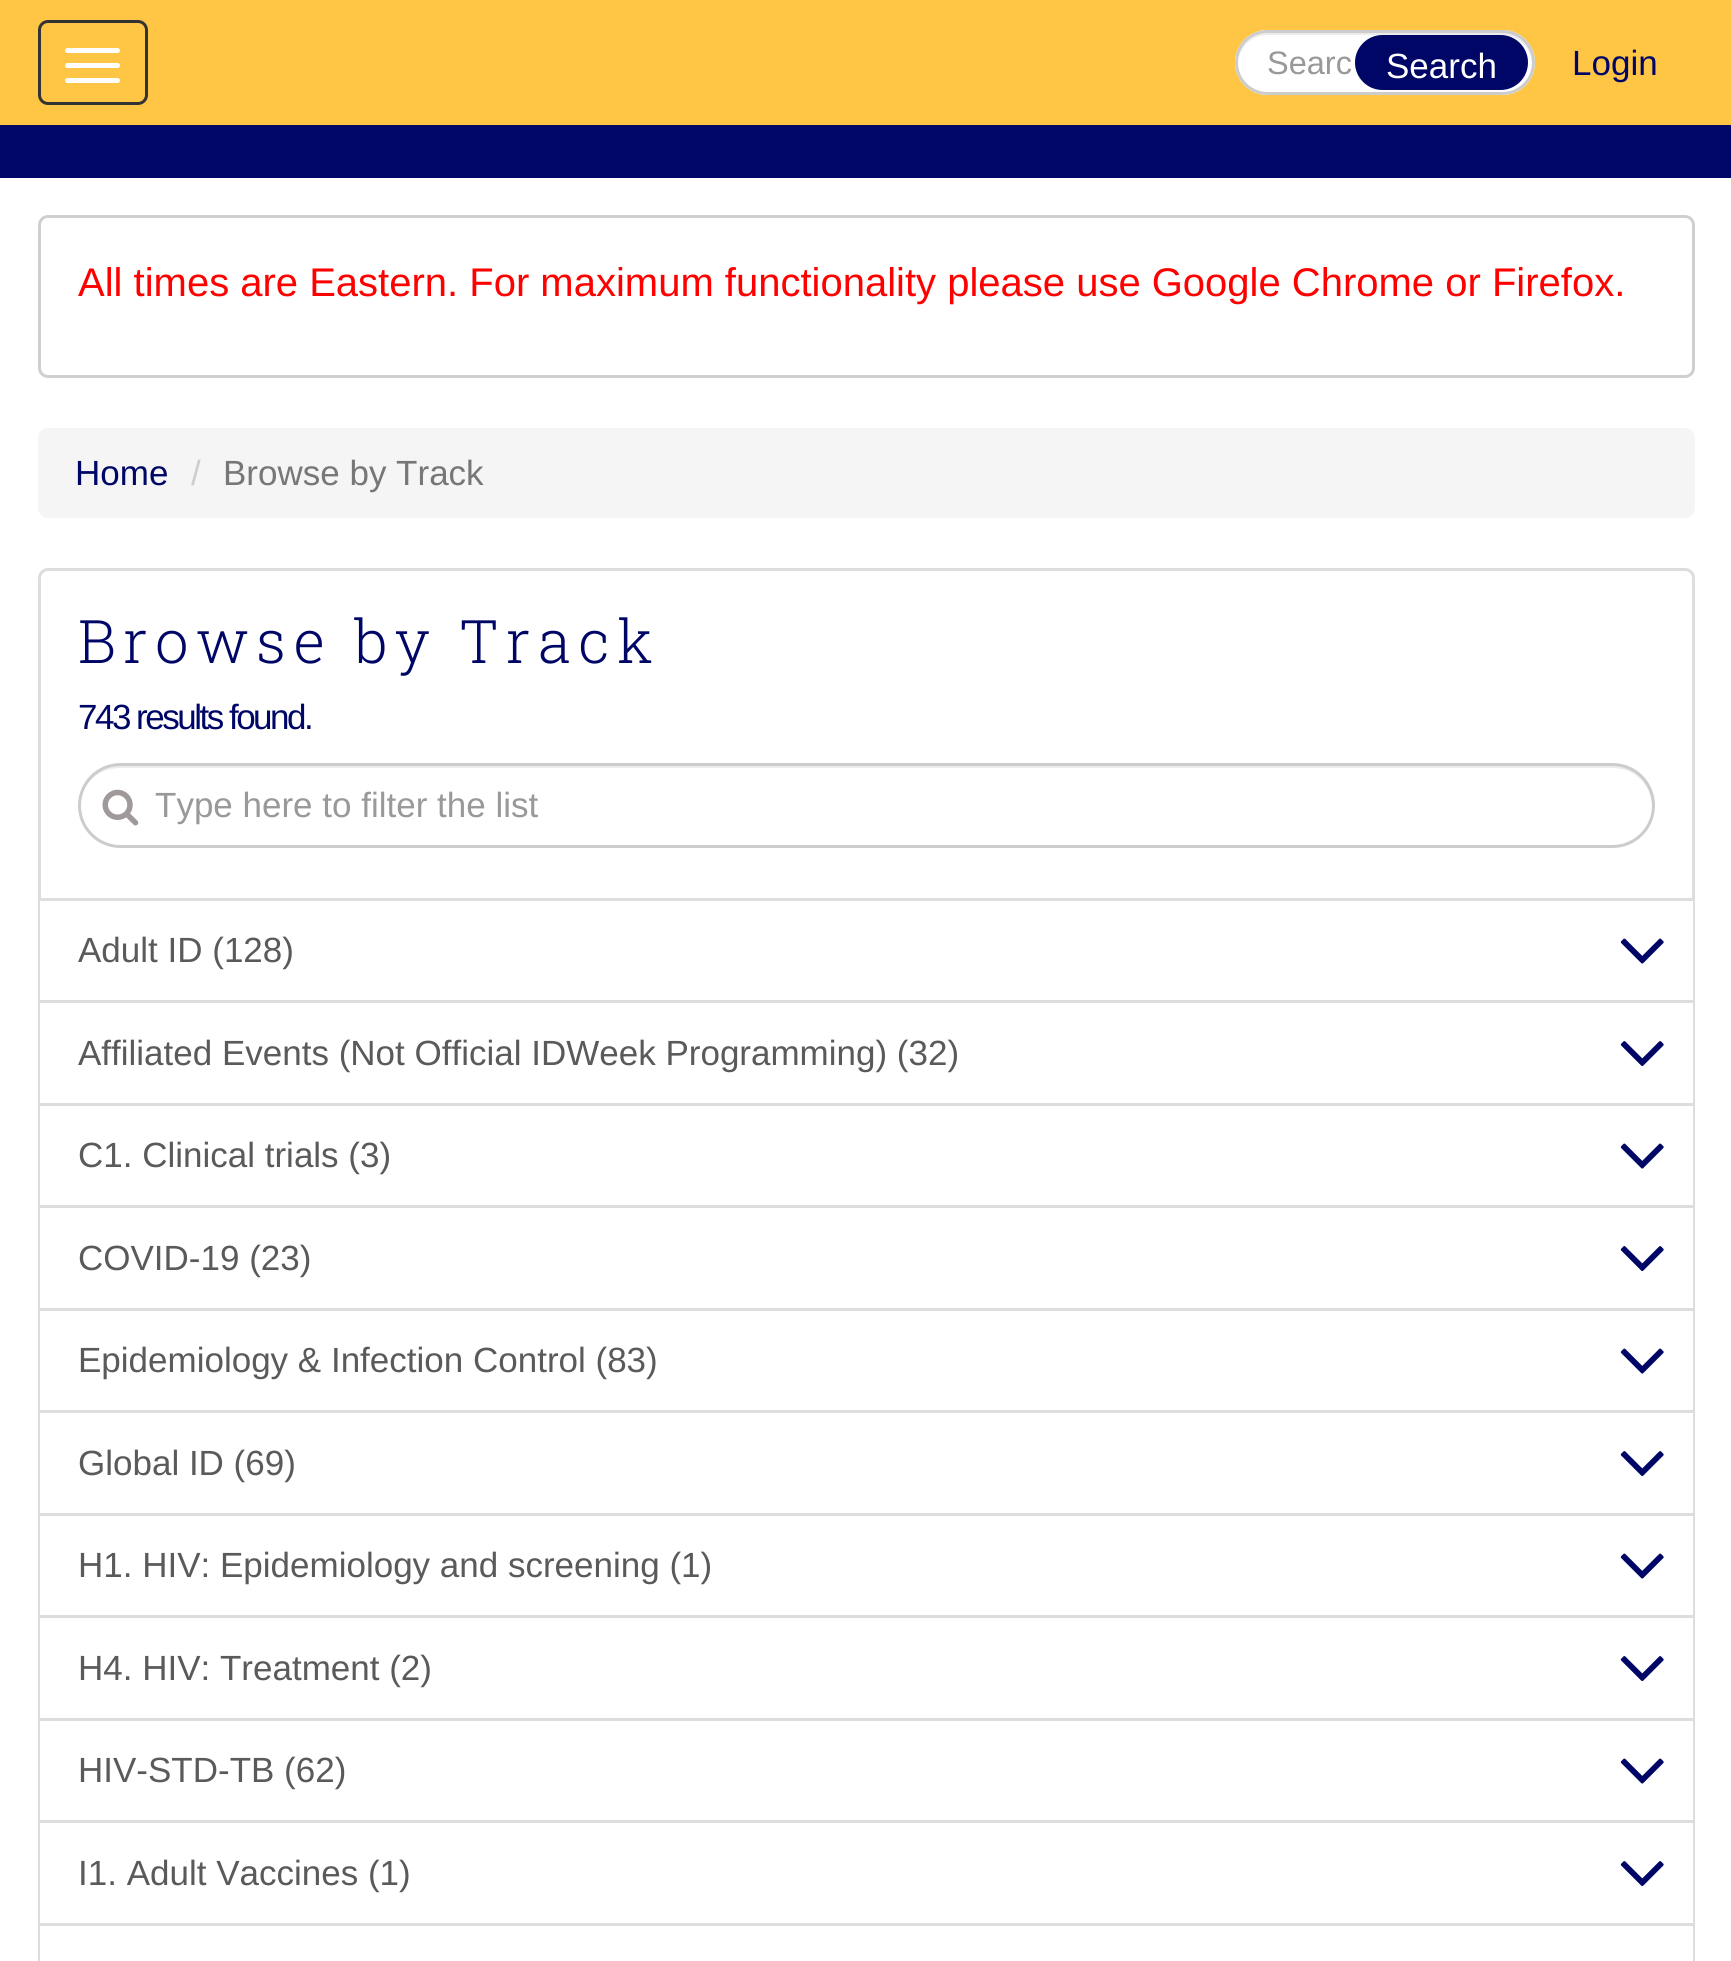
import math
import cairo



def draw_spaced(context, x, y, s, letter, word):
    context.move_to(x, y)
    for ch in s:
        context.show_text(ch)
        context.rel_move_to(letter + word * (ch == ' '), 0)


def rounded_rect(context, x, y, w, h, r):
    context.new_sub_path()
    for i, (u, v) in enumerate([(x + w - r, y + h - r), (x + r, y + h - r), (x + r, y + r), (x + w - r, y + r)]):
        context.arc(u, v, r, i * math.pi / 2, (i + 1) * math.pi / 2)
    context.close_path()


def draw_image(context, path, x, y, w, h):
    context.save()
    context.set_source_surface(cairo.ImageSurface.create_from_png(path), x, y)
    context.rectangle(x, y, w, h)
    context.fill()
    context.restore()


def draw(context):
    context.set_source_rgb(1, 1, 1)
    context.paint()
    context.set_source_rgb(1, 197 / 255, 69 / 255)
    context.rectangle(0, 0, 1731, 125)
    context.fill()
    rounded_rect(context, 39.5, 21.5, 107, 82, 8.5)
    context.set_source_rgb(51 / 255, 51 / 255, 51 / 255)
    context.set_line_width(3)
    context.stroke()
    context.set_source_rgb(1, 1, 1)
    rounded_rect(context, 65, 48, 55, 5, 2.5)
    context.fill()
    rounded_rect(context, 65, 63, 55, 5, 2.5)
    context.fill()
    rounded_rect(context, 65, 78, 55, 5, 2.5)
    context.fill()
    rounded_rect(context, 1235, 30, 300, 65, 32.5)
    context.fill()
    context.set_source_rgb(236 / 255, 236 / 255, 236 / 255)
    context.new_path()
    context.move_to(1268, 35)
    context.line_to(1502, 35)
    context.curve_to(1519, 35, 1532, 48, 1532, 65)
    context.curve_to(1532, 69, 1531, 73, 1530, 76)
    context.curve_to(1532, 72, 1533, 68, 1533, 63)
    context.curve_to(1533, 46, 1520, 33, 1503, 33)
    context.line_to(1268, 33)
    context.curve_to(1251, 33, 1238, 46, 1238, 63)
    context.line_to(1238, 64)
    context.curve_to(1239, 47, 1251, 35, 1268, 35)
    context.close_path()
    context.fill()
    rounded_rect(context, 1236.5, 31.5, 297, 62, 31)
    context.set_source_rgb(204 / 255, 204 / 255, 204 / 255)
    context.stroke()
    context.set_source_rgb(0, 6 / 255, 102 / 255)
    rounded_rect(context, 1355, 35, 173, 55, 27.5)
    context.fill()
    context.rectangle(0, 125, 1731, 53)
    context.fill()
    rounded_rect(context, 39.5, 216.5, 1654, 160, 8.5)
    context.set_source_rgb(207 / 255, 207 / 255, 207 / 255)
    context.stroke()
    context.set_source_rgb(245 / 255, 245 / 255, 245 / 255)
    rounded_rect(context, 38, 428, 1657, 90, 10)
    context.fill()
    rounded_rect(context, 39.5, 569.5, 1654, 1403, 8.5)
    context.set_source_rgb(221 / 255, 221 / 255, 221 / 255)
    context.stroke()
    context.set_source_rgb(236 / 255, 236 / 255, 236 / 255)
    context.new_path()
    context.move_to(120, 768)
    context.line_to(1612, 768)
    context.curve_to(1635, 768, 1652, 785, 1652, 808)
    context.curve_to(1652, 812, 1652, 815, 1651, 819)
    context.curve_to(1660, 793, 1641, 765, 1613, 765)
    context.line_to(120, 765)
    context.curve_to(112, 765, 104, 767, 98, 772)
    context.curve_to(86, 779, 80, 793, 80, 806)
    context.curve_to(81, 784, 98, 768, 120, 768)
    context.close_path()
    context.fill()
    rounded_rect(context, 79.5, 764.5, 1574, 82, 41)
    context.set_source_rgb(204 / 255, 204 / 255, 204 / 255)
    context.stroke()
    draw_image(context, "images/1.png", 102, 789, 37, 37)
    context.set_source_rgb(1, 1, 1)
    context.rectangle(40, 901, 1653, 99)
    context.fill()
    context.set_source_rgb(221 / 255, 221 / 255, 221 / 255)
    context.rectangle(40, 898, 1653, 3)
    context.fill()
    context.rectangle(40, 1000, 1653, 3)
    context.fill()
    draw_image(context, "images/2.png", 1620, 938, 44, 26)
    context.set_source_rgb(1, 1, 1)
    context.rectangle(40, 1003, 1653, 100)
    context.fill()
    draw_image(context, "images/3.png", 1620, 1041, 44, 26)
    context.rectangle(40, 1106, 1653, 99)
    context.fill()
    context.set_source_rgb(221 / 255, 221 / 255, 221 / 255)
    context.rectangle(40, 1103, 1653, 3)
    context.fill()
    context.rectangle(40, 1205, 1653, 3)
    context.fill()
    draw_image(context, "images/2.png", 1620, 1143, 44, 26)
    context.set_source_rgb(1, 1, 1)
    context.rectangle(40, 1208, 1653, 100)
    context.fill()
    draw_image(context, "images/3.png", 1620, 1246, 44, 26)
    context.rectangle(40, 1311, 1653, 99)
    context.fill()
    context.set_source_rgb(221 / 255, 221 / 255, 221 / 255)
    context.rectangle(40, 1308, 1653, 3)
    context.fill()
    context.rectangle(40, 1410, 1653, 3)
    context.fill()
    draw_image(context, "images/2.png", 1620, 1348, 44, 26)
    context.set_source_rgb(1, 1, 1)
    context.rectangle(40, 1413, 1653, 100)
    context.fill()
    draw_image(context, "images/3.png", 1620, 1451, 44, 26)
    context.rectangle(40, 1516, 1653, 99)
    context.fill()
    context.set_source_rgb(221 / 255, 221 / 255, 221 / 255)
    context.rectangle(40, 1513, 1653, 3)
    context.fill()
    context.rectangle(40, 1615, 1653, 3)
    context.fill()
    draw_image(context, "images/2.png", 1620, 1553, 44, 26)
    context.set_source_rgb(1, 1, 1)
    context.rectangle(40, 1618, 1653, 100)
    context.fill()
    draw_image(context, "images/3.png", 1620, 1656, 44, 26)
    context.rectangle(40, 1721, 1653, 99)
    context.fill()
    context.set_source_rgb(221 / 255, 221 / 255, 221 / 255)
    context.rectangle(40, 1718, 1653, 3)
    context.fill()
    context.rectangle(40, 1820, 1653, 3)
    context.fill()
    draw_image(context, "images/2.png", 1620, 1758, 44, 26)
    context.set_source_rgb(1, 1, 1)
    context.rectangle(40, 1823, 1653, 100)
    context.fill()
    draw_image(context, "images/3.png", 1620, 1861, 44, 26)
    context.rectangle(40, 1926, 1653, 35)
    context.fill()
    context.set_source_rgb(221 / 255, 221 / 255, 221 / 255)
    context.rectangle(40, 1923, 1653, 3)
    context.fill()
    context.select_font_face("Liberation Sans")
    context.set_font_size(32.5)
    context.set_source_rgb(153 / 255, 153 / 255, 153 / 255)
    context.move_to(1267, 74)
    context.show_text("Searc")
    context.set_font_size(35)
    context.set_source_rgb(1, 1, 1)
    context.move_to(1386, 78)
    context.show_text("Search")
    context.set_source_rgb(0, 6 / 255, 102 / 255)
    context.move_to(1572, 75)
    context.show_text("Login")
    context.set_font_size(40)
    context.set_source_rgb(1, 0, 0)
    context.move_to(78, 296)
    context.show_text("All times are Eastern. For maximum functionality please use Google Chrome or Firefox.")
    context.set_font_size(35)
    context.set_source_rgb(0, 6 / 255, 102 / 255)
    context.move_to(75, 485)
    context.show_text("Home")
    context.set_source_rgb(204 / 255, 204 / 255, 204 / 255)
    context.move_to(191, 485)
    context.show_text("/")
    context.set_source_rgb(119 / 255, 119 / 255, 119 / 255)
    context.move_to(223, 485)
    context.show_text("Browse by Track")
    context.select_font_face("Roboto Slab Light")
    context.set_font_size(60)
    context.set_source_rgb(0, 6 / 255, 102 / 255)
    draw_spaced(context, 78, 663, "Browse by Track", 7.5, 0)
    context.select_font_face("Liberation Sans")
    context.set_font_size(35)
    draw_spaced(context, 78, 729, "743 results found.", -2.5, 0)
    context.set_source_rgb(153 / 255, 153 / 255, 153 / 255)
    context.move_to(155, 817)
    context.show_text("Type here to filter the list")
    context.set_source_rgb(90 / 255, 90 / 255, 90 / 255)
    context.move_to(78, 962)
    context.show_text("Adult ID (128)")
    context.move_to(78, 1065)
    context.show_text("Affiliated Events (Not Official IDWeek Programming) (32)")
    context.move_to(78, 1167)
    context.show_text("C1. Clinical trials (3)")
    context.move_to(78, 1270)
    context.show_text("COVID-19 (23)")
    context.move_to(78, 1372)
    context.show_text("Epidemiology & Infection Control (83)")
    context.move_to(78, 1475)
    context.show_text("Global ID (69)")
    context.move_to(78, 1577)
    context.show_text("H1. HIV: Epidemiology and screening (1)")
    context.move_to(78, 1680)
    context.show_text("H4. HIV: Treatment (2)")
    context.move_to(78, 1782)
    context.show_text("HIV-STD-TB (62)")
    context.move_to(78, 1885)
    context.show_text("I1. Adult Vaccines (1)")


surface = cairo.ImageSurface(cairo.Format.RGB24, 1731, 1961)
context = cairo.Context(surface)
options = cairo.FontOptions()
options.set_hint_metrics(cairo.HintMetrics.OFF)
options.set_hint_style(cairo.HintStyle.NONE)
context.set_font_options(options)
context.set_miter_limit(4)
draw(context)
surface.write_to_png("out.png")
